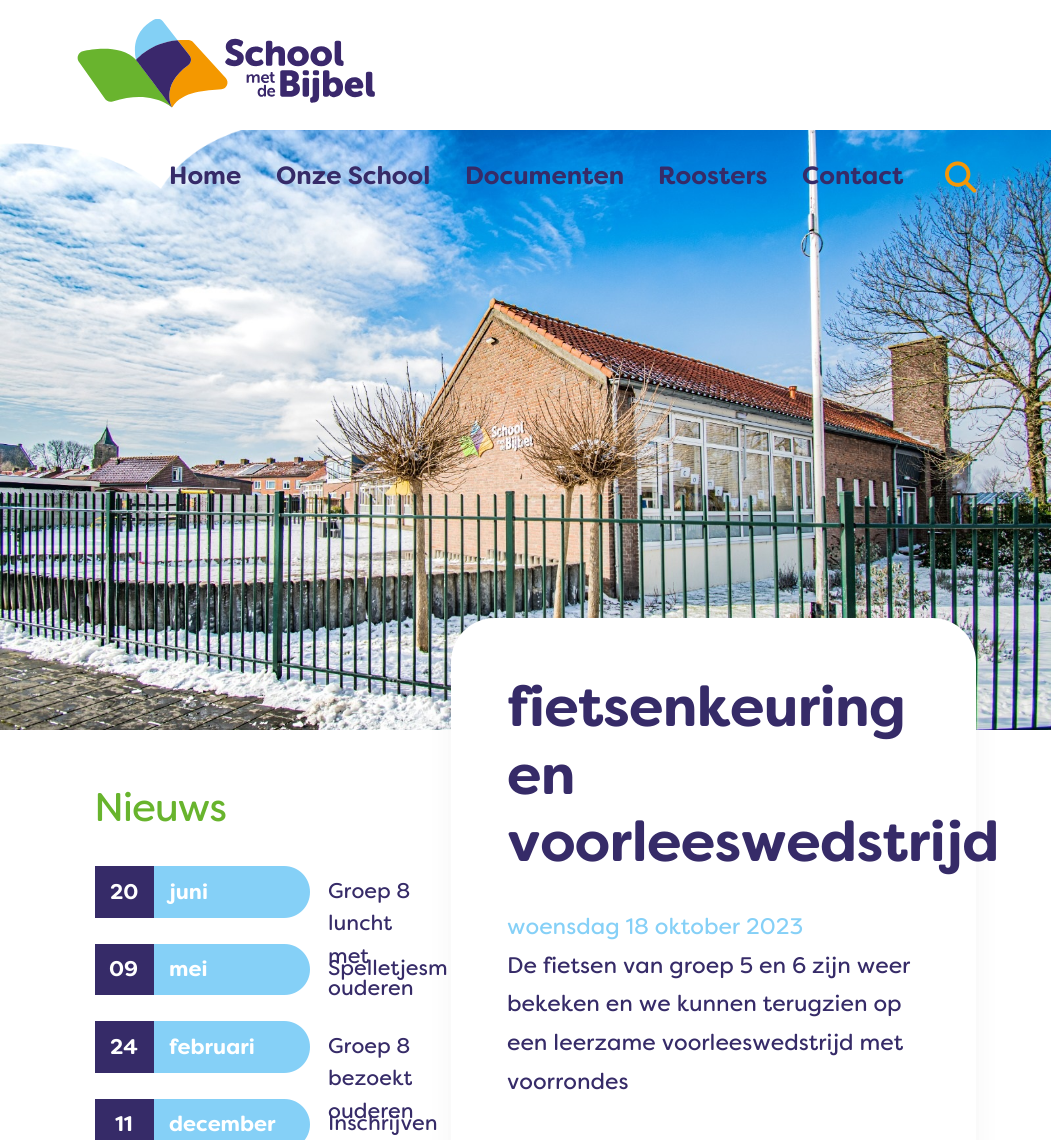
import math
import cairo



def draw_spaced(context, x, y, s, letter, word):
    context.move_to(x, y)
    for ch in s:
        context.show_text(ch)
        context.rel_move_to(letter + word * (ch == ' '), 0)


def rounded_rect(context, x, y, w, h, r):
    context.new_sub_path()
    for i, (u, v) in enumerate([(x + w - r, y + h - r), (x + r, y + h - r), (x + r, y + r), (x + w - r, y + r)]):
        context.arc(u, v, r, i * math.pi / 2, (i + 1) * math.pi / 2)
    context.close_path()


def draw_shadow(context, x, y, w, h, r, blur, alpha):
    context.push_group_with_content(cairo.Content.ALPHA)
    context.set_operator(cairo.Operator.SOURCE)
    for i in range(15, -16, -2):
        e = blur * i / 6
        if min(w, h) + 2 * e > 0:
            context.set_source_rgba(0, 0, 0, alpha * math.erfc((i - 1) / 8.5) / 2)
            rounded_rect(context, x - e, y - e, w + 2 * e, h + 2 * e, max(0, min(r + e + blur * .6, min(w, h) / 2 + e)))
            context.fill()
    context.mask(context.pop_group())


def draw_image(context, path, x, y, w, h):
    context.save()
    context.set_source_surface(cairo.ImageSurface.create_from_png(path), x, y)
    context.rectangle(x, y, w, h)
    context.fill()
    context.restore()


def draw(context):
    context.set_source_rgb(1, 1, 1)
    context.paint()
    draw_image(context, "images/1.png", 0, 130, 1051, 600)
    draw_image(context, "images/2.png", 0, 130, 241, 59)
    draw_image(context, "images/3.png", 77, 19, 298, 89)
    draw_image(context, "images/4.png", 945, 161, 32, 32)
    context.set_source_rgb(54 / 255, 43 / 255, 104 / 255)
    context.rectangle(95, 866, 59, 52)
    context.fill()
    context.set_source_rgb(133 / 255, 208 / 255, 247 / 255)
    context.new_path()
    context.move_to(154, 866)
    context.line_to(284, 866)
    context.curve_to(298.5, 866, 310, 877.5, 310, 892)
    context.curve_to(310, 906.5, 298.5, 918, 284, 918)
    context.line_to(154, 918)
    context.close_path()
    context.fill()
    context.set_source_rgb(54 / 255, 43 / 255, 104 / 255)
    context.rectangle(95, 944, 59, 51)
    context.fill()
    context.set_source_rgb(133 / 255, 208 / 255, 247 / 255)
    context.new_path()
    context.move_to(154, 944)
    context.line_to(284.5, 944)
    context.curve_to(298.5, 944, 310, 955.5, 310, 969.5)
    context.curve_to(310, 983.5, 298.5, 995, 284.5, 995)
    context.line_to(154, 995)
    context.close_path()
    context.fill()
    context.set_source_rgb(54 / 255, 43 / 255, 104 / 255)
    context.rectangle(95, 1021, 59, 52)
    context.fill()
    context.set_source_rgb(133 / 255, 208 / 255, 247 / 255)
    context.new_path()
    context.move_to(154, 1021)
    context.line_to(284, 1021)
    context.curve_to(298.5, 1021, 310, 1032.5, 310, 1047)
    context.curve_to(310, 1061.5, 298.5, 1073, 284, 1073)
    context.line_to(154, 1073)
    context.close_path()
    context.fill()
    context.set_source_rgb(54 / 255, 43 / 255, 104 / 255)
    context.rectangle(95, 1099, 59, 41)
    context.fill()
    context.set_source_rgb(133 / 255, 208 / 255, 247 / 255)
    context.new_path()
    context.move_to(154, 1099)
    context.line_to(284.5, 1099)
    context.curve_to(298.5, 1099, 310, 1110.5, 310, 1124.5)
    context.curve_to(310, 1138.5, 298.5, 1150, 284.5, 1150)
    context.line_to(154, 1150)
    context.close_path()
    context.fill()
    context.set_source_rgb(221 / 255, 221 / 255, 221 / 255)
    draw_shadow(context, 466, 664, 495, 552, 29, 15.5, 1)
    context.set_source_rgb(1, 1, 1)
    context.new_path()
    context.move_to(495, 618)
    context.line_to(932, 618)
    context.curve_to(956.5, 618, 976, 637.5, 976, 662)
    context.line_to(976, 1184)
    context.line_to(451, 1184)
    context.line_to(451, 662)
    context.curve_to(451, 637.5, 470.5, 618, 495, 618)
    context.close_path()
    context.fill()
    context.select_font_face("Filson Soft", cairo.FontSlant.NORMAL, cairo.FontWeight.BOLD)
    context.set_font_size(25)
    context.set_source_rgb(54 / 255, 43 / 255, 104 / 255)
    context.move_to(169, 184)
    context.show_text("Home")
    context.move_to(276, 184)
    context.show_text("Onze School")
    context.move_to(465, 184)
    context.show_text("Documenten")
    context.move_to(658, 184)
    context.show_text("Roosters")
    context.move_to(802, 184)
    context.show_text("Contact")
    context.select_font_face("Filson Soft")
    context.set_font_size(40)
    context.set_source_rgb(104 / 255, 180 / 255, 45 / 255)
    draw_spaced(context, 94, 821, "Nieuws", -1.25, 0)
    context.select_font_face("Filson Soft", cairo.FontSlant.NORMAL, cairo.FontWeight.BOLD)
    context.set_font_size(21.25)
    context.set_source_rgb(1, 1, 1)
    context.move_to(110, 899)
    context.show_text("20")
    context.move_to(169, 899)
    context.show_text("juni")
    context.select_font_face("Filson Soft")
    context.set_source_rgb(54 / 255, 43 / 255, 104 / 255)
    context.move_to(328, 898)
    context.show_text("Groep 8")
    context.move_to(328, 930)
    context.show_text("luncht")
    context.move_to(328, 963)
    context.show_text("met")
    context.move_to(328, 995)
    context.show_text("ouderen")
    context.select_font_face("Filson Soft", cairo.FontSlant.NORMAL, cairo.FontWeight.BOLD)
    context.set_source_rgb(1, 1, 1)
    context.move_to(109, 976)
    context.show_text("09")
    context.move_to(169, 976)
    context.show_text("mei")
    context.select_font_face("Filson Soft")
    context.set_source_rgb(54 / 255, 43 / 255, 104 / 255)
    context.move_to(328, 975)
    context.show_text("Spelletjesm")
    context.select_font_face("Filson Soft", cairo.FontSlant.NORMAL, cairo.FontWeight.BOLD)
    context.set_source_rgb(1, 1, 1)
    context.move_to(110, 1054)
    context.show_text("24")
    context.move_to(169, 1054)
    context.show_text("februari")
    context.select_font_face("Filson Soft")
    context.set_source_rgb(54 / 255, 43 / 255, 104 / 255)
    context.move_to(328, 1053)
    context.show_text("Groep 8")
    context.move_to(328, 1085)
    context.show_text("bezoekt")
    context.move_to(328, 1118)
    context.show_text("ouderen")
    context.select_font_face("Filson Soft", cairo.FontSlant.NORMAL, cairo.FontWeight.BOLD)
    context.set_source_rgb(1, 1, 1)
    context.move_to(115, 1131)
    context.show_text("11")
    context.move_to(169, 1131)
    context.show_text("december")
    context.select_font_face("Filson Soft")
    context.set_source_rgb(54 / 255, 43 / 255, 104 / 255)
    context.move_to(328, 1130)
    context.show_text("Inschrijven")
    context.select_font_face("Filson Soft", cairo.FontSlant.NORMAL, cairo.FontWeight.BOLD)
    context.set_font_size(56.25)
    draw_spaced(context, 507, 726, "fietsenkeuring", -0.6, 0)
    draw_spaced(context, 507, 794, "en", -0.6, 0)
    draw_spaced(context, 507, 861, "voorleeswedstrijd", -0.6, 0)
    context.select_font_face("Filson Soft")
    context.set_font_size(22.5)
    context.set_source_rgb(133 / 255, 208 / 255, 247 / 255)
    context.move_to(507, 934)
    context.show_text("woensdag 18 oktober 2023")
    context.set_source_rgb(54 / 255, 43 / 255, 104 / 255)
    context.move_to(507, 973)
    context.show_text("De fietsen van groep 5 en 6 zijn weer")
    context.move_to(507, 1011)
    context.show_text("bekeken en we kunnen terugzien op")
    context.move_to(507, 1050)
    context.show_text("een leerzame voorleeswedstrijd met")
    context.move_to(507, 1089)
    context.show_text("voorrondes")


surface = cairo.ImageSurface(cairo.Format.RGB24, 1051, 1140)
context = cairo.Context(surface)
options = cairo.FontOptions()
options.set_hint_metrics(cairo.HintMetrics.OFF)
options.set_hint_style(cairo.HintStyle.NONE)
context.set_font_options(options)
context.set_miter_limit(4)
draw(context)
surface.write_to_png("out.png")
